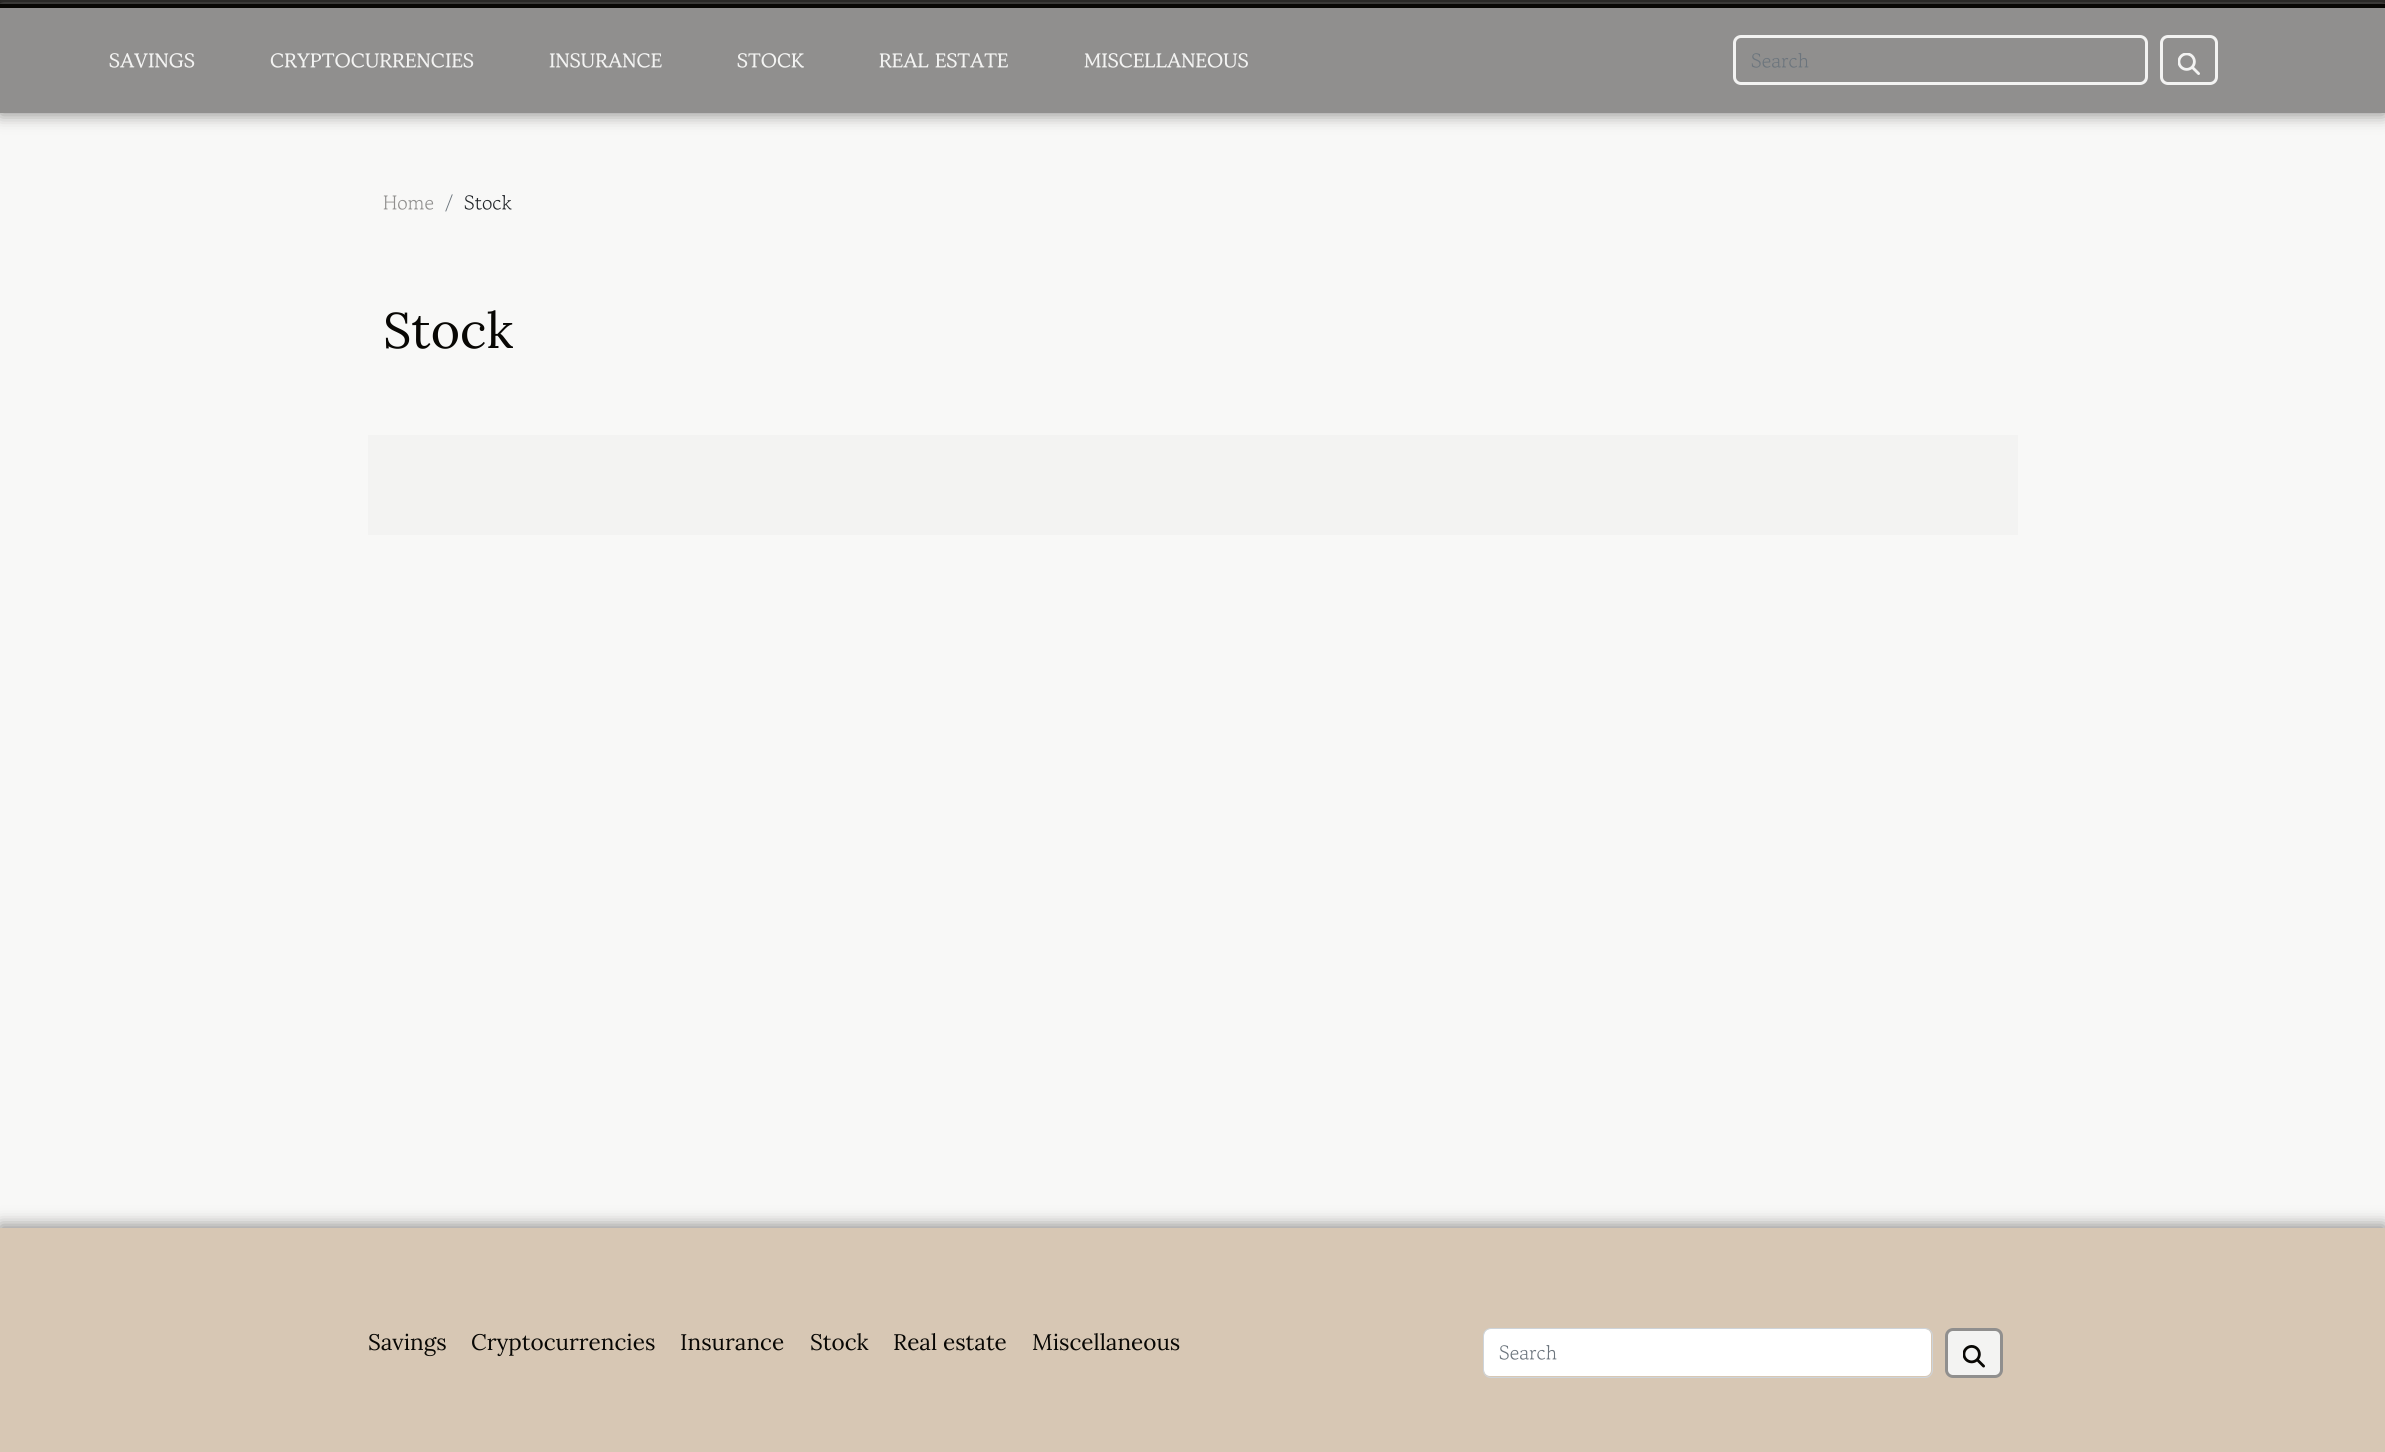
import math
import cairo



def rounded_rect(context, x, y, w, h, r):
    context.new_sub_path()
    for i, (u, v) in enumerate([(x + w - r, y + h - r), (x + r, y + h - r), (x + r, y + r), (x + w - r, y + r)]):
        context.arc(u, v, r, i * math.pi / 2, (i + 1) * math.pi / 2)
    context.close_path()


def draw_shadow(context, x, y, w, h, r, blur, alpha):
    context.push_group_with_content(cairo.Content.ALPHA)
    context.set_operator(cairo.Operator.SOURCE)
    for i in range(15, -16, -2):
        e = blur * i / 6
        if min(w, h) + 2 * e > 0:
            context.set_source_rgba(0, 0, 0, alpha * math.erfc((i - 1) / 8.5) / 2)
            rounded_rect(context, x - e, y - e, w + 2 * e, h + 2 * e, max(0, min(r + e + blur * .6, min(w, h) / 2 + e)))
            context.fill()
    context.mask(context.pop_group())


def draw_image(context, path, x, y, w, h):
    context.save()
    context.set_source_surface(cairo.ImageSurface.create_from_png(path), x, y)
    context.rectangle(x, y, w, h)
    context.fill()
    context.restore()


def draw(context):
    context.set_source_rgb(248 / 255, 248 / 255, 247 / 255)
    context.paint()
    context.set_source_rgb(8 / 255, 7 / 255, 4 / 255)
    context.rectangle(0, 0, 2385, 4)
    context.fill()
    context.set_source_rgb(144 / 255, 143 / 255, 142 / 255)
    draw_shadow(context, 0, 6, 2385, 109, 0, 8, 1)
    context.set_source_rgb(144 / 255, 143 / 255, 142 / 255)
    context.rectangle(0, 8, 2385, 105)
    context.fill()
    context.set_source_rgb(8 / 255, 7 / 255, 4 / 255)
    context.rectangle(0, 4, 2385, 4)
    context.fill()
    rounded_rect(context, 1734.5, 36.5, 412, 47, 6.5)
    context.set_source_rgb(243 / 255, 243 / 255, 242 / 255)
    context.set_line_width(3)
    context.stroke()
    rounded_rect(context, 2161.5, 36.5, 55, 47, 6.5)
    context.stroke()
    draw_image(context, "images/1.png", 2178, 53, 22, 22)
    context.rectangle(368, 435, 1650, 100)
    context.fill()
    context.set_source_rgb(144 / 255, 143 / 255, 142 / 255)
    draw_shadow(context, 0, 1225, 2385, 225, 0, 8, 1)
    context.set_source_rgb(215 / 255, 199 / 255, 180 / 255)
    context.rectangle(0, 1228, 2385, 224)
    context.fill()
    context.set_source_rgb(1, 1, 1)
    rounded_rect(context, 1484, 1329, 447, 47, 6)
    context.fill()
    rounded_rect(context, 1483.5, 1328.5, 449, 49, 7.5)
    context.set_source_rgb(206 / 255, 212 / 255, 218 / 255)
    context.set_line_width(1)
    context.stroke()
    context.set_source_rgb(243 / 255, 243 / 255, 242 / 255)
    rounded_rect(context, 1946.5, 1329.5, 55, 47, 6.5)
    context.fill_preserve()
    context.set_source_rgb(144 / 255, 143 / 255, 142 / 255)
    context.set_line_width(3)
    context.stroke()
    draw_image(context, "images/2.png", 1963, 1345, 22, 23)
    context.select_font_face("Gowun Batang", cairo.FontSlant.NORMAL, cairo.FontWeight.BOLD)
    context.set_font_size(20)
    context.set_source_rgb(243 / 255, 243 / 255, 242 / 255)
    context.move_to(109, 69)
    context.show_text("SAVINGS")
    context.move_to(270, 69)
    context.show_text("CRYPTOCURRENCIES")
    context.move_to(549, 69)
    context.show_text("INSURANCE")
    context.move_to(737, 69)
    context.show_text("STOCK")
    context.move_to(879, 69)
    context.show_text("REAL ESTATE")
    context.move_to(1084, 69)
    context.show_text("MISCELLANEOUS")
    context.select_font_face("Gowun Batang")
    context.set_source_rgb(108 / 255, 117 / 255, 125 / 255)
    context.move_to(1751, 69)
    context.show_text("Search")
    context.set_source_rgb(144 / 255, 143 / 255, 142 / 255)
    context.move_to(383, 211)
    context.show_text("Home")
    context.set_source_rgb(108 / 255, 117 / 255, 125 / 255)
    context.move_to(444, 211)
    context.show_text("/")
    context.set_source_rgb(33 / 255, 37 / 255, 41 / 255)
    context.move_to(464, 211)
    context.show_text("Stock")
    context.select_font_face("Lora")
    context.set_font_size(50)
    context.set_source_rgb(8 / 255, 7 / 255, 4 / 255)
    context.move_to(383, 348)
    context.show_text("Stock")
    context.set_font_size(22.5)
    context.move_to(368, 1350)
    context.show_text("Savings")
    context.move_to(471, 1350)
    context.show_text("Cryptocurrencies")
    context.move_to(680, 1350)
    context.show_text("Insurance")
    context.move_to(810, 1350)
    context.show_text("Stock")
    context.move_to(893, 1350)
    context.show_text("Real estate")
    context.move_to(1032, 1350)
    context.show_text("Miscellaneous")
    context.select_font_face("Gowun Batang")
    context.set_font_size(20)
    context.set_source_rgb(108 / 255, 117 / 255, 125 / 255)
    context.move_to(1499, 1361)
    context.show_text("Search")


surface = cairo.ImageSurface(cairo.Format.RGB24, 2385, 1452)
context = cairo.Context(surface)
options = cairo.FontOptions()
options.set_hint_metrics(cairo.HintMetrics.OFF)
options.set_hint_style(cairo.HintStyle.NONE)
context.set_font_options(options)
context.set_miter_limit(4)
draw(context)
surface.write_to_png("out.png")
